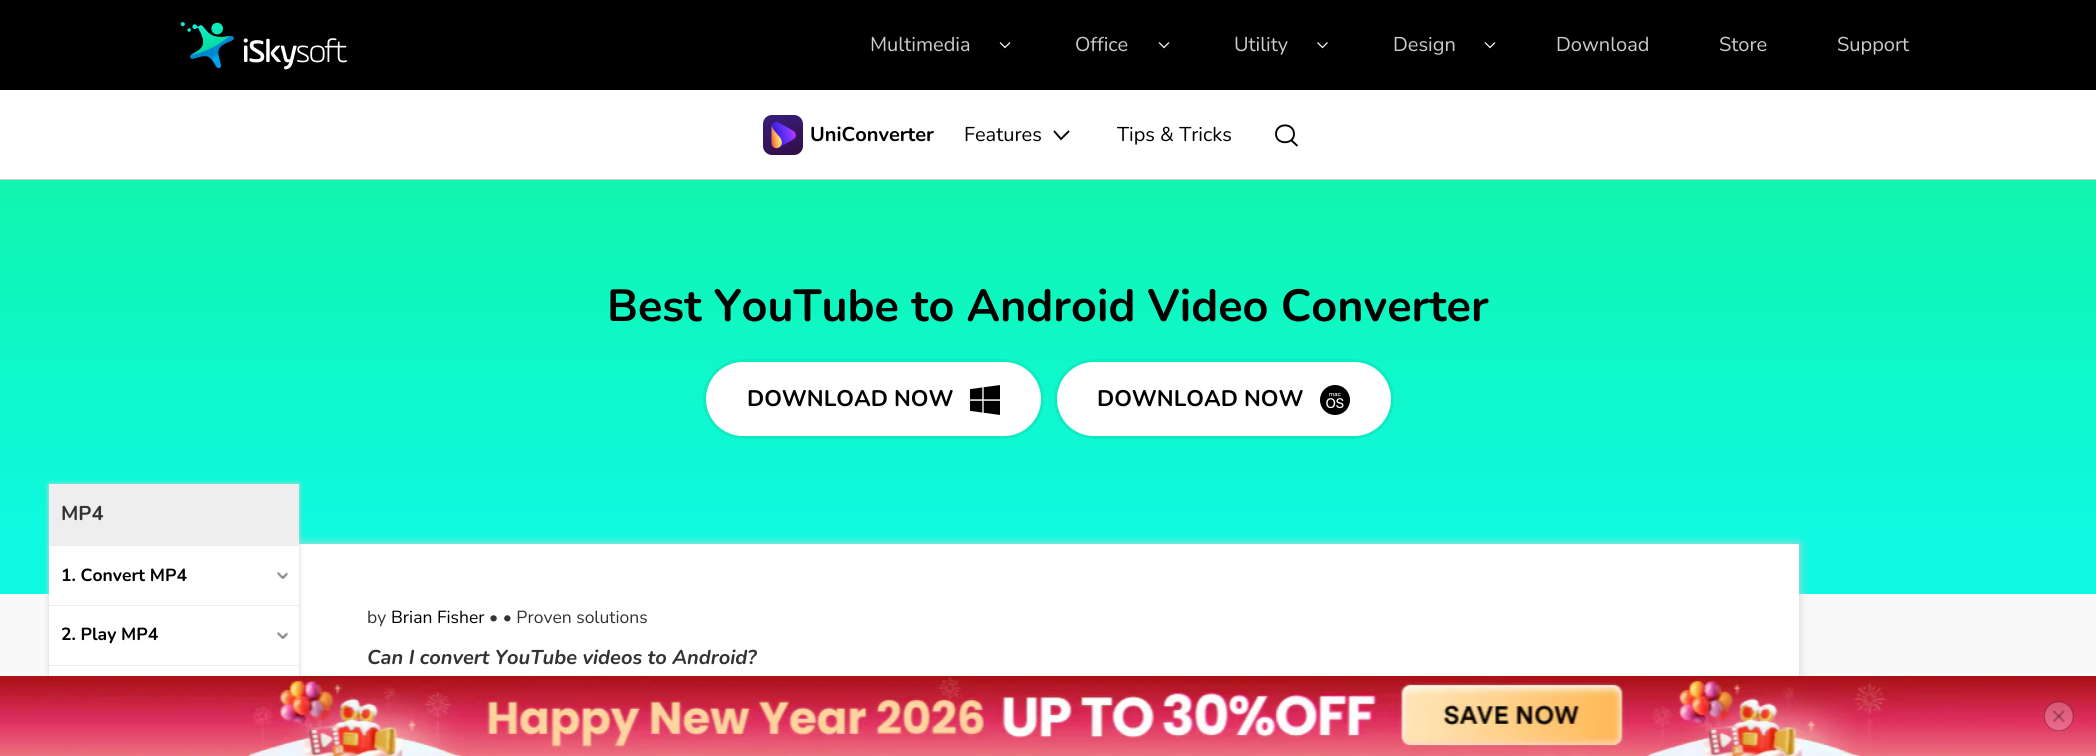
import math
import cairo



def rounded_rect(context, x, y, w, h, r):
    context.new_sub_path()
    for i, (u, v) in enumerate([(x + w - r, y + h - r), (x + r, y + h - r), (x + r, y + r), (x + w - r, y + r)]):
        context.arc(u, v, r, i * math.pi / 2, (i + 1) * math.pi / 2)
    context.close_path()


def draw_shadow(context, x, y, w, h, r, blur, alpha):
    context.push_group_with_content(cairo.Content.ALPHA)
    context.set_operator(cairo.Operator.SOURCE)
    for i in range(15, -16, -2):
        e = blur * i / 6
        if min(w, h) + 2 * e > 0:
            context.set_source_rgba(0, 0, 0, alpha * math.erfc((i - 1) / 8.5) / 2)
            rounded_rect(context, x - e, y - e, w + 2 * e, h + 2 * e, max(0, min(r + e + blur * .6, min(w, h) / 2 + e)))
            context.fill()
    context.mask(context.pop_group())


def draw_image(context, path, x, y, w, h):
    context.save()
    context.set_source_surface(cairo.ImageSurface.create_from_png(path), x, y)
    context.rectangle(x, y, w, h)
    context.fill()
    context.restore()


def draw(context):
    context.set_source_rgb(1, 1, 1)
    context.paint()
    context.set_source_rgb(0, 0, 0)
    context.rectangle(0, 0, 2096, 90)
    context.fill()
    draw_image(context, "images/1.png", 180, 22, 167, 48)
    context.new_path()
    context.move_to(1000, 42.5)
    context.line_to(1005, 47.5)
    context.line_to(1010, 42.5)
    context.set_source_rgb(1, 1, 1)
    context.set_line_width(1.2)
    context.stroke()
    context.new_path()
    context.move_to(1159, 42.5)
    context.line_to(1164, 47.5)
    context.line_to(1169, 42.5)
    context.stroke()
    context.new_path()
    context.move_to(1317.5, 42.5)
    context.line_to(1322.5, 47.5)
    context.line_to(1327.5, 42.5)
    context.stroke()
    context.new_path()
    context.move_to(1485, 42.5)
    context.line_to(1490, 47.5)
    context.line_to(1495, 42.5)
    context.stroke()
    context.set_source_rgb(204 / 255, 204 / 255, 204 / 255)
    context.rectangle(0, 179, 2096, 1)
    context.fill()
    draw_image(context, "images/2.png", 763, 115, 40, 40)
    context.new_path()
    context.move_to(1054, 131)
    context.line_to(1061, 139)
    context.line_to(1069, 131)
    context.set_source_rgb(0, 0, 0)
    context.set_line_width(1.9)
    context.stroke()
    context.new_path()
    context.move_to(1291, 140)
    context.line_to(1297.5, 146)
    context.move_to(1294, 134)
    context.curve_to(1294, 145, 1276, 145, 1276, 134)
    context.curve_to(1276, 122.5, 1294, 122.5, 1294, 134)
    context.close_path()
    context.stroke()
    gradient = cairo.LinearGradient(1048, 180, 1048, 544)
    gradient.add_color_stop_rgba(0, 16 / 255, 246 / 255, 175 / 255, 1)
    gradient.add_color_stop_rgba(1, 14 / 255, 249 / 255, 226 / 255, 1)
    context.set_source(gradient)
    context.rectangle(0, 180, 2096, 364)
    context.fill()
    context.set_source_rgb(1, 1, 1)
    rounded_rect(context, 704.5, 360.5, 338, 77, 38.5)
    context.fill_preserve()
    context.set_source_rgb(15 / 255, 235 / 255, 192 / 255)
    context.set_line_width(3)
    context.stroke()
    draw_image(context, "images/3.png", 970, 385, 30, 30)
    context.set_source_rgb(1, 1, 1)
    rounded_rect(context, 1055.5, 360.5, 337, 77, 38.5)
    context.fill_preserve()
    context.set_source_rgb(15 / 255, 235 / 255, 192 / 255)
    context.stroke()
    draw_image(context, "images/4.png", 1320, 385, 30, 30)
    context.set_source_rgb(249 / 255, 249 / 255, 249 / 255)
    context.rectangle(0, 594, 2096, 82)
    context.fill()
    context.set_source_rgb(14 / 255, 249 / 255, 226 / 255)
    context.rectangle(0, 544, 2096, 50)
    context.fill()
    context.set_source_rgb(210 / 255, 210 / 255, 210 / 255)
    draw_shadow(context, 299, 544, 1500, 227, 0, 5, 1)
    context.set_source_rgb(1, 1, 1)
    context.rectangle(299, 544, 1500, 132)
    context.fill()
    context.set_source_rgb(210 / 255, 210 / 255, 210 / 255)
    draw_shadow(context, 49, 484, 250, 241, 0, 2.5, 1)
    context.set_source_rgb(1, 1, 1)
    context.rectangle(49, 546, 250, 130)
    context.fill()
    context.set_source_rgb(238 / 255, 238 / 255, 238 / 255)
    context.rectangle(49, 484, 250, 61)
    context.fill()
    context.set_source_rgb(237 / 255, 237 / 255, 237 / 255)
    context.rectangle(49, 545, 250, 1)
    context.fill()
    draw_image(context, "images/5.png", 277, 572, 11, 7)
    context.rectangle(49, 605, 250, 1)
    context.fill()
    draw_image(context, "images/5.png", 277, 632, 11, 7)
    context.rectangle(49, 665, 250, 1)
    context.fill()
    draw_image(context, "images/6.png", 0, 676, 2096, 80)
    draw_image(context, "images/7.png", 2044, 701, 30, 30)
    context.select_font_face("Nunito")
    context.set_font_size(20)
    context.set_source_rgb(204 / 255, 204 / 255, 204 / 255)
    context.move_to(870, 51)
    context.show_text("Multimedia")
    context.move_to(1075, 51)
    context.show_text("Office")
    context.move_to(1234, 51)
    context.show_text("Utility")
    context.move_to(1393, 51)
    context.show_text("Design")
    context.move_to(1556, 51)
    context.show_text("Download")
    context.move_to(1719, 51)
    context.show_text("Store")
    context.move_to(1837, 51)
    context.show_text("Support")
    context.select_font_face("Nunito", cairo.FontSlant.NORMAL, cairo.FontWeight.BOLD)
    context.set_source_rgb(0, 0, 0)
    context.move_to(810, 141)
    context.show_text("UniConverter")
    context.select_font_face("Nunito")
    context.move_to(964, 141)
    context.show_text("Features")
    context.move_to(1117, 141)
    context.show_text("Tips & Tricks")
    context.select_font_face("Nunito", cairo.FontSlant.NORMAL, cairo.FontWeight.BOLD)
    context.set_font_size(45)
    context.move_to(607, 321)
    context.show_text("Best YouTube to Android Video Converter")
    context.set_font_size(22.5)
    context.move_to(747, 406)
    context.show_text("DOWNLOAD NOW")
    context.move_to(1097, 406)
    context.show_text("DOWNLOAD NOW")
    context.set_font_size(20)
    context.set_source_rgb(51 / 255, 51 / 255, 51 / 255)
    context.move_to(61, 520)
    context.show_text("MP4")
    context.set_font_size(17.5)
    context.set_source_rgb(0, 0, 0)
    context.move_to(61, 581)
    context.show_text("1. Convert MP4")
    context.move_to(61, 640)
    context.show_text("2. Play MP4")
    context.select_font_face("Nunito")
    context.set_source_rgb(51 / 255, 51 / 255, 51 / 255)
    context.move_to(367, 623)
    context.show_text("by")
    context.set_source_rgb(0, 0, 0)
    context.move_to(391, 623)
    context.show_text("Brian Fisher")
    context.set_source_rgb(51 / 255, 51 / 255, 51 / 255)
    context.move_to(489, 623)
    context.show_text("• • Proven solutions")
    context.select_font_face("Nunito", cairo.FontSlant.ITALIC, cairo.FontWeight.BOLD)
    context.set_font_size(20)
    context.move_to(367, 664)
    context.show_text("Can I convert YouTube videos to Android?")


surface = cairo.ImageSurface(cairo.Format.RGB24, 2096, 756)
context = cairo.Context(surface)
options = cairo.FontOptions()
options.set_hint_metrics(cairo.HintMetrics.OFF)
options.set_hint_style(cairo.HintStyle.NONE)
context.set_font_options(options)
context.set_miter_limit(4)
draw(context)
surface.write_to_png("out.png")
